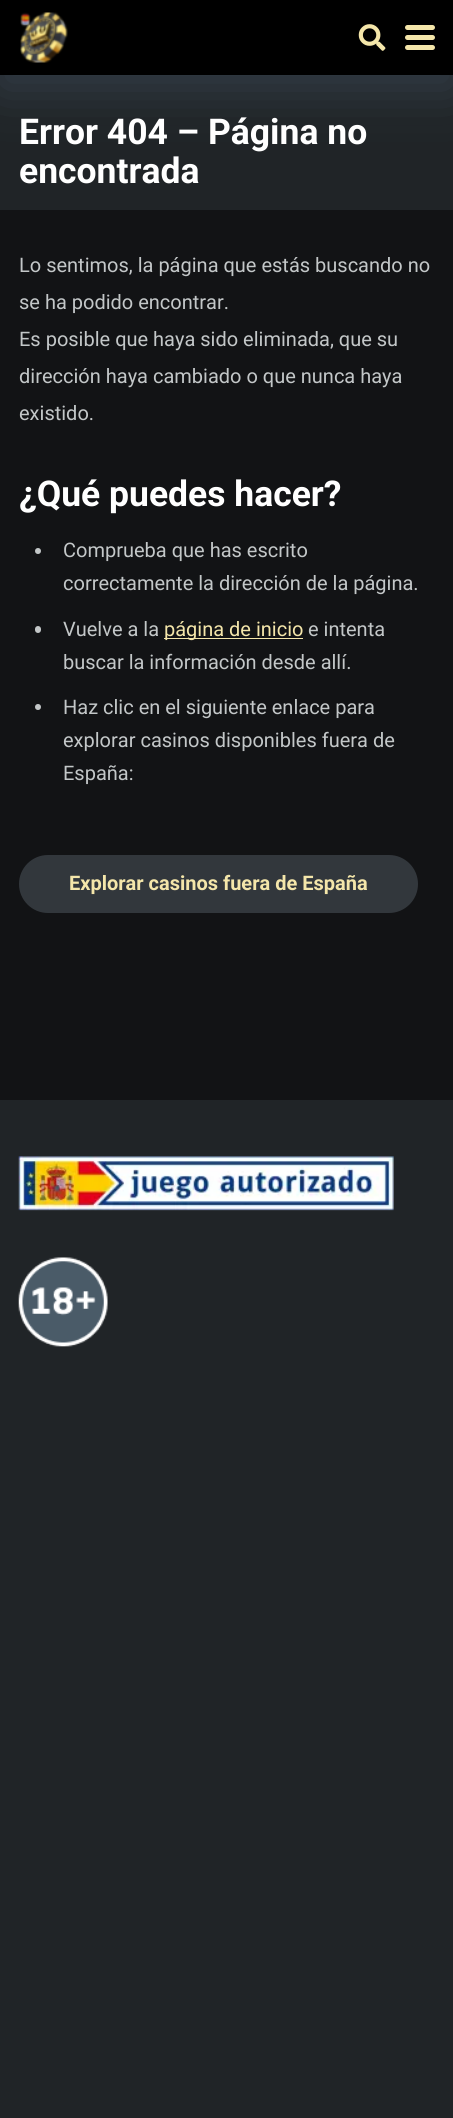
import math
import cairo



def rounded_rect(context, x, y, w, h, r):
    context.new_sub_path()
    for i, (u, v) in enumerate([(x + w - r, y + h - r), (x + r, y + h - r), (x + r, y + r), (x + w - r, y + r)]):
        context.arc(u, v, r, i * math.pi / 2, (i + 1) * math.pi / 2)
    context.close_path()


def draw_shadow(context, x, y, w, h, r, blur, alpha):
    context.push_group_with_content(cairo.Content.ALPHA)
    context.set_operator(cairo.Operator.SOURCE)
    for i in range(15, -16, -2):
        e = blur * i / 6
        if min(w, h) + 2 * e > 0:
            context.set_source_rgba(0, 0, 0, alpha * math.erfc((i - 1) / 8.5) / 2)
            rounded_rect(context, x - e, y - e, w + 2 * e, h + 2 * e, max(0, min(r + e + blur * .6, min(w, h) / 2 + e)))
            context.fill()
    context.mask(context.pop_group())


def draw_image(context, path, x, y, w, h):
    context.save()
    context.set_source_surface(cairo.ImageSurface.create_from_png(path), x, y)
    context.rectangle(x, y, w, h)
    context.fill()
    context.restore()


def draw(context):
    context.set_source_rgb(18 / 255, 19 / 255, 21 / 255)
    context.paint()
    context.set_source_rgb(32 / 255, 36 / 255, 39 / 255)
    context.rectangle(0, 75, 453, 135)
    context.fill()
    context.set_source_rgb(109 / 255, 141 / 255, 173 / 255)
    draw_shadow(context, 0, 13, 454, 75, 0, 25, 0.25)
    context.set_source_rgb(0, 0, 0)
    context.rectangle(0, 0, 453, 75)
    context.fill()
    draw_image(context, "images/1.png", 20, 12, 48, 51)
    draw_image(context, "images/2.png", 358, 24, 28, 27)
    context.set_source_rgb(244 / 255, 230 / 255, 170 / 255)
    rounded_rect(context, 405, 25, 30, 5, 2.5)
    context.fill()
    rounded_rect(context, 405, 35, 30, 5, 2.5)
    context.fill()
    rounded_rect(context, 405, 45, 30, 5, 2.5)
    context.fill()
    context.set_source_rgb(195 / 255, 199 / 255, 200 / 255)
    context.arc(38, 551, 3, 0, 2 * math.pi)
    context.fill()
    rounded_rect(context, 35, 626, 6, 7, 3)
    context.fill()
    context.set_source_rgb(244 / 255, 230 / 255, 170 / 255)
    context.rectangle(164, 638, 139, 1)
    context.fill()
    context.set_source_rgb(195 / 255, 199 / 255, 200 / 255)
    context.arc(38, 707, 3, 0, 2 * math.pi)
    context.fill()
    context.set_source_rgb(50 / 255, 55 / 255, 60 / 255)
    rounded_rect(context, 19, 855, 399, 58, 29)
    context.fill()
    context.set_source_rgb(32 / 255, 36 / 255, 39 / 255)
    context.rectangle(0, 1100, 453, 1018)
    context.fill()
    draw_image(context, "images/3.png", 18, 1156, 376, 55)
    draw_image(context, "images/4.png", 18, 1257, 90, 90)
    context.select_font_face("Roboto", cairo.FontSlant.NORMAL, cairo.FontWeight.BOLD)
    context.set_font_size(35.5)
    context.set_source_rgb(1, 1, 1)
    context.move_to(19, 144)
    context.show_text("Error 404 – Página no")
    context.move_to(19, 183)
    context.show_text("encontrada")
    context.select_font_face("Roboto")
    context.set_font_size(20)
    context.set_source_rgb(195 / 255, 199 / 255, 200 / 255)
    context.move_to(19, 272)
    context.show_text("Lo sentimos, la página que estás buscando no")
    context.move_to(19, 309)
    context.show_text("se ha podido encontrar.")
    context.move_to(19, 346)
    context.show_text("Es posible que haya sido eliminada, que su")
    context.move_to(19, 383)
    context.show_text("dirección haya cambiado o que nunca haya")
    context.move_to(19, 420)
    context.show_text("existido.")
    context.select_font_face("Roboto", cairo.FontSlant.NORMAL, cairo.FontWeight.BOLD)
    context.set_font_size(35.5)
    context.set_source_rgb(1, 1, 1)
    context.move_to(19, 506)
    context.show_text("¿Qué puedes hacer?")
    context.select_font_face("Roboto")
    context.set_font_size(20)
    context.set_source_rgb(195 / 255, 199 / 255, 200 / 255)
    context.move_to(63, 557)
    context.show_text("Comprueba que has escrito")
    context.move_to(63, 590)
    context.show_text("correctamente la dirección de la página.")
    context.move_to(63, 636)
    context.show_text("Vuelve a la")
    context.set_source_rgb(244 / 255, 230 / 255, 170 / 255)
    context.move_to(164, 636)
    context.show_text("página de inicio")
    context.set_source_rgb(195 / 255, 199 / 255, 200 / 255)
    context.move_to(308, 636)
    context.show_text("e intenta")
    context.move_to(63, 669)
    context.show_text("buscar la información desde allí.")
    context.move_to(63, 714)
    context.show_text("Haz clic en el siguiente enlace para")
    context.move_to(63, 747)
    context.show_text("explorar casinos disponibles fuera de")
    context.move_to(63, 780)
    context.show_text("España:")
    context.select_font_face("Roboto", cairo.FontSlant.NORMAL, cairo.FontWeight.BOLD)
    context.set_source_rgb(244 / 255, 230 / 255, 170 / 255)
    context.move_to(69, 890)
    context.show_text("Explorar casinos fuera de España")


surface = cairo.ImageSurface(cairo.Format.RGB24, 453, 2118)
context = cairo.Context(surface)
options = cairo.FontOptions()
options.set_hint_metrics(cairo.HintMetrics.OFF)
options.set_hint_style(cairo.HintStyle.NONE)
context.set_font_options(options)
context.set_miter_limit(4)
draw(context)
surface.write_to_png("out.png")
